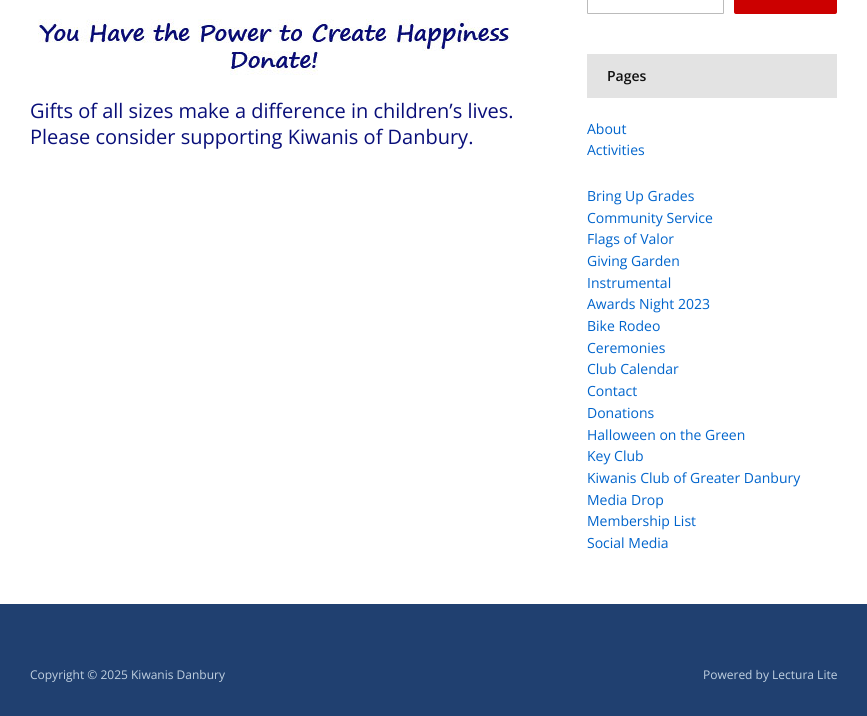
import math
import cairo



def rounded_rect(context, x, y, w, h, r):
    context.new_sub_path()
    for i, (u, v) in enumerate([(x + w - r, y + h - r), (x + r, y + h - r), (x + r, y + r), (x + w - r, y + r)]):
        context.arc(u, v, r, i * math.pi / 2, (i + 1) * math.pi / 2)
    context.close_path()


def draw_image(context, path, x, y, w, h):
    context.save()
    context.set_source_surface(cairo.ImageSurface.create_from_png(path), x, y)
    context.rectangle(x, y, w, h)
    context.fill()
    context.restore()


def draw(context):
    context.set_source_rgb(1, 1, 1)
    context.paint()
    draw_image(context, "images/1.png", 38, 19, 472, 56)
    rounded_rect(context, 587.5, -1.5, 136, 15, 0.5)
    context.set_source_rgb(187 / 255, 187 / 255, 187 / 255)
    context.set_line_width(1)
    context.stroke()
    context.set_source_rgb(204 / 255, 0, 0)
    rounded_rect(context, 734, -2, 103, 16, 2)
    context.fill()
    context.set_source_rgb(227 / 255, 227 / 255, 227 / 255)
    context.rectangle(587, 54, 250, 44)
    context.fill()
    context.set_source_rgb(32 / 255, 64 / 255, 112 / 255)
    context.rectangle(0, 604, 867, 112)
    context.fill()
    context.select_font_face("Open Sans")
    context.set_font_size(20)
    context.set_source_rgb(8 / 255, 14 / 255, 121 / 255)
    context.move_to(30, 118)
    context.show_text("Gifts of all sizes make a difference in children’s lives.")
    context.move_to(30, 144)
    context.show_text("Please consider supporting Kiwanis of Danbury.")
    context.select_font_face("Open Sans SemiBold")
    context.set_font_size(14)
    context.set_source_rgb(17 / 255, 17 / 255, 17 / 255)
    context.move_to(607, 81)
    context.show_text("Pages")
    context.select_font_face("Open Sans")
    context.set_source_rgb(0, 100 / 255, 204 / 255)
    context.move_to(587, 134)
    context.show_text("About")
    context.move_to(587, 155)
    context.show_text("Activities")
    context.move_to(587, 201)
    context.show_text("Bring Up Grades")
    context.move_to(587, 223)
    context.show_text("Community Service")
    context.move_to(587, 244)
    context.show_text("Flags of Valor")
    context.move_to(587, 266)
    context.show_text("Giving Garden")
    context.move_to(587, 288)
    context.show_text("Instrumental")
    context.move_to(587, 309)
    context.show_text("Awards Night 2023")
    context.move_to(587, 331)
    context.show_text("Bike Rodeo")
    context.move_to(587, 353)
    context.show_text("Ceremonies")
    context.move_to(587, 374)
    context.show_text("Club Calendar")
    context.move_to(587, 396)
    context.show_text("Contact")
    context.move_to(587, 418)
    context.show_text("Donations")
    context.move_to(587, 440)
    context.show_text("Halloween on the Green")
    context.move_to(587, 461)
    context.show_text("Key Club")
    context.move_to(587, 483)
    context.show_text("Kiwanis Club of Greater Danbury")
    context.move_to(587, 505)
    context.show_text("Media Drop")
    context.move_to(587, 526)
    context.show_text("Membership List")
    context.move_to(587, 548)
    context.show_text("Social Media")
    context.set_font_size(12)
    context.set_source_rgb(192 / 255, 208 / 255, 224 / 255)
    context.move_to(30, 679)
    context.show_text("Copyright © 2025 Kiwanis Danbury")
    context.move_to(703, 679)
    context.show_text("Powered by Lectura Lite")


surface = cairo.ImageSurface(cairo.Format.RGB24, 867, 716)
context = cairo.Context(surface)
options = cairo.FontOptions()
options.set_hint_metrics(cairo.HintMetrics.OFF)
options.set_hint_style(cairo.HintStyle.NONE)
context.set_font_options(options)
context.set_miter_limit(4)
draw(context)
surface.write_to_png("out.png")
